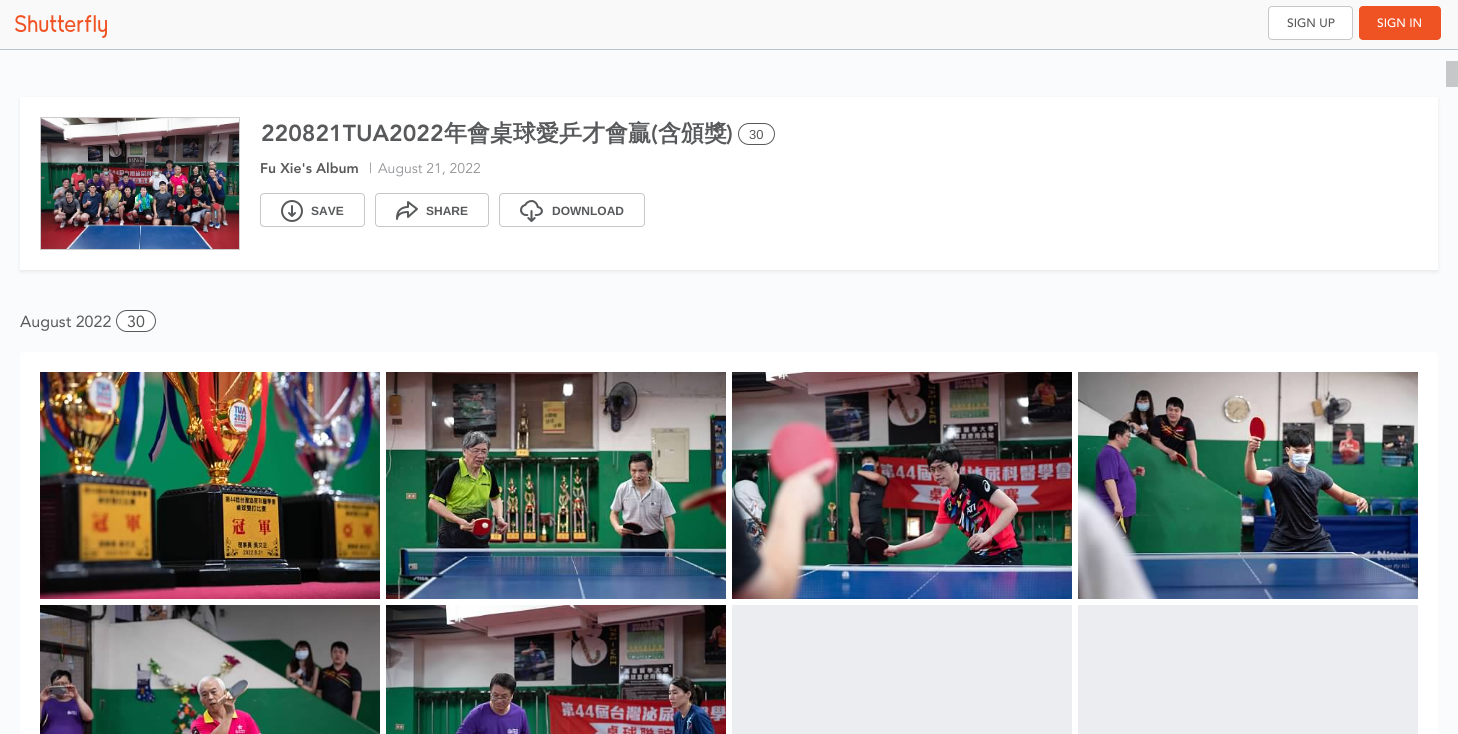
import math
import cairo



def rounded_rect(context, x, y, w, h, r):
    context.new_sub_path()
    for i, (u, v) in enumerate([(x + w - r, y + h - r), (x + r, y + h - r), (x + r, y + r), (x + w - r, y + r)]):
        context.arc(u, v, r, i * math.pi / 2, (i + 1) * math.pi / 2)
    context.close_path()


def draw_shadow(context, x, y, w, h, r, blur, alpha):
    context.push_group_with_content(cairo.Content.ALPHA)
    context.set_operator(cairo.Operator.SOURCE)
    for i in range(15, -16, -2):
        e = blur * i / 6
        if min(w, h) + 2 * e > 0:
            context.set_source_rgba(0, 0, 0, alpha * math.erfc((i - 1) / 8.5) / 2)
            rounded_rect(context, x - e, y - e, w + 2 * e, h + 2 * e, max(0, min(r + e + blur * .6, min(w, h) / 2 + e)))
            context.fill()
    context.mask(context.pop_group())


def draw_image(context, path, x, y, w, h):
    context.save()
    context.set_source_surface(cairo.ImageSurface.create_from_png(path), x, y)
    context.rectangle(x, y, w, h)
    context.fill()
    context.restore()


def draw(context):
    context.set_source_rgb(250 / 255, 251 / 255, 252 / 255)
    context.paint()
    context.set_source_rgb(249 / 255, 249 / 255, 249 / 255)
    context.rectangle(0, 0, 1458, 49)
    context.fill()
    context.set_source_rgb(185 / 255, 196 / 255, 206 / 255)
    context.rectangle(0, 49, 1458, 1)
    context.fill()
    draw_image(context, "images/1.png", 15, 15, 92, 23)
    context.set_source_rgb(1, 1, 1)
    rounded_rect(context, 1268.5, 6.5, 84, 33, 3.5)
    context.fill_preserve()
    context.set_source_rgb(198 / 255, 199 / 255, 201 / 255)
    context.set_line_width(1)
    context.stroke()
    context.set_source_rgb(240 / 255, 83 / 255, 35 / 255)
    rounded_rect(context, 1359.5, 6.5, 81, 33, 3.5)
    context.fill_preserve()
    context.stroke()
    context.set_source_rgb(198 / 255, 199 / 255, 201 / 255)
    context.rectangle(1446, 61, 12, 26)
    context.fill()
    context.set_source_rgb(0, 0, 0)
    draw_shadow(context, 20, 99, 1418, 173, 0, 2, 0.07)
    context.set_source_rgb(1, 1, 1)
    context.rectangle(20, 97, 1418, 173)
    context.fill()
    draw_image(context, "images/2.png", 41, 118, 198, 131)
    context.rectangle(40.5, 117.5, 199, 132)
    context.set_source_rgb(204 / 255, 204 / 255, 204 / 255)
    context.stroke()
    rounded_rect(context, 738.5, 123.5, 36, 21, 10.5)
    context.set_source_rgb(88 / 255, 89 / 255, 91 / 255)
    context.stroke()
    rounded_rect(context, 260.5, 193.5, 104, 33, 3.5)
    context.set_source_rgb(198 / 255, 199 / 255, 201 / 255)
    context.stroke()
    draw_image(context, "images/3.png", 281, 200, 22, 22)
    rounded_rect(context, 375.5, 193.5, 113, 33, 3.5)
    context.stroke()
    draw_image(context, "images/4.png", 396, 201, 22, 19)
    rounded_rect(context, 499.5, 193.5, 145, 33, 3.5)
    context.stroke()
    draw_image(context, "images/5.png", 520, 200, 23, 22)
    context.set_source_rgb(1, 1, 1)
    rounded_rect(context, 116.5, 310.5, 39, 21, 10.5)
    context.fill_preserve()
    context.set_source_rgb(88 / 255, 89 / 255, 91 / 255)
    context.stroke()
    context.set_source_rgb(1, 1, 1)
    context.new_path()
    context.move_to(24, 352)
    context.line_to(1434, 352)
    context.curve_to(1436, 352, 1438, 354, 1438, 356)
    context.line_to(1438, 734)
    context.line_to(20, 734)
    context.line_to(20, 356)
    context.curve_to(20, 354, 22, 352, 24, 352)
    context.close_path()
    context.fill()
    draw_image(context, "images/6.png", 40, 372, 340, 227)
    draw_image(context, "images/7.png", 386, 372, 340, 227)
    draw_image(context, "images/8.png", 732, 372, 340, 227)
    draw_image(context, "images/9.png", 1078, 372, 340, 227)
    draw_image(context, "images/10.png", 40, 605, 340, 129)
    draw_image(context, "images/11.png", 386, 605, 340, 129)
    context.set_source_rgb(235 / 255, 237 / 255, 240 / 255)
    context.rectangle(732, 605, 340, 129)
    context.fill()
    context.rectangle(1078, 605, 340, 129)
    context.fill()
    context.select_font_face("Avenir Medium")
    context.set_font_size(12)
    context.set_source_rgb(88 / 255, 89 / 255, 91 / 255)
    context.move_to(1287, 27)
    context.show_text("SIGN UP")
    context.set_source_rgb(1, 1, 1)
    context.move_to(1377, 27)
    context.show_text("SIGN IN")
    context.select_font_face("Avenir Black")
    context.set_font_size(23)
    context.set_source_rgb(88 / 255, 89 / 255, 91 / 255)
    context.move_to(261, 141)
    context.show_text("220821TUA2022")
    context.select_font_face("WenQuanYi Zen Hei", cairo.FontSlant.NORMAL, cairo.FontWeight.BOLD)
    context.move_to(444, 141)
    context.show_text("年會桌球愛乒才會贏 含頒獎")
    context.select_font_face("Avenir Black")
    context.move_to(651, 141)
    context.show_text("(")
    context.move_to(726, 141)
    context.show_text(")")
    context.select_font_face("Liberation Sans")
    context.set_font_size(13)
    context.move_to(749, 139)
    context.show_text("30")
    context.select_font_face("Avenir Black")
    context.set_font_size(14)
    context.move_to(260, 173)
    context.show_text("Fu Xie's Album")
    context.select_font_face("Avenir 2")
    context.set_source_rgb(146 / 255, 148 / 255, 151 / 255)
    context.move_to(369, 173)
    context.show_text("|")
    context.move_to(378, 173)
    context.show_text("August 21, 2022")
    context.select_font_face("Liberation Sans", cairo.FontSlant.NORMAL, cairo.FontWeight.BOLD)
    context.set_font_size(12)
    context.set_source_rgb(88 / 255, 89 / 255, 91 / 255)
    context.move_to(311, 215)
    context.show_text("SAVE")
    context.move_to(426, 215)
    context.show_text("SHARE")
    context.move_to(552, 215)
    context.show_text("DOWNLOAD")
    context.select_font_face("Avenir")
    context.set_font_size(16)
    context.move_to(20, 327)
    context.show_text("August 2022")
    context.move_to(127, 327)
    context.show_text("30")


surface = cairo.ImageSurface(cairo.Format.RGB24, 1458, 734)
context = cairo.Context(surface)
options = cairo.FontOptions()
options.set_hint_metrics(cairo.HintMetrics.OFF)
options.set_hint_style(cairo.HintStyle.NONE)
context.set_font_options(options)
context.set_miter_limit(4)
draw(context)
surface.write_to_png("out.png")
